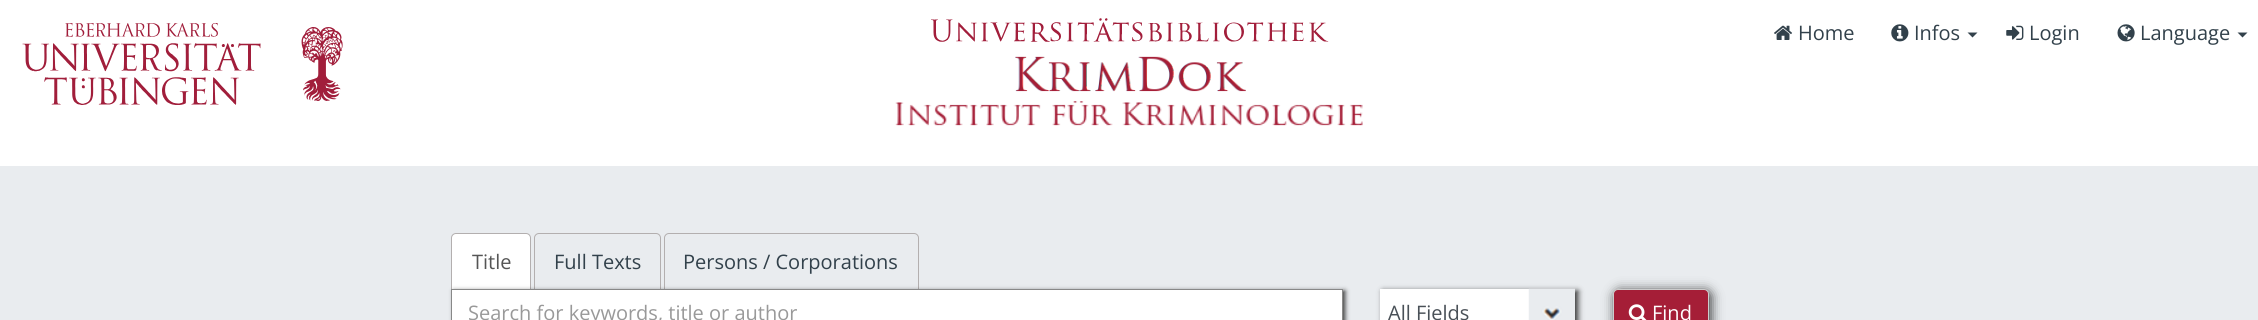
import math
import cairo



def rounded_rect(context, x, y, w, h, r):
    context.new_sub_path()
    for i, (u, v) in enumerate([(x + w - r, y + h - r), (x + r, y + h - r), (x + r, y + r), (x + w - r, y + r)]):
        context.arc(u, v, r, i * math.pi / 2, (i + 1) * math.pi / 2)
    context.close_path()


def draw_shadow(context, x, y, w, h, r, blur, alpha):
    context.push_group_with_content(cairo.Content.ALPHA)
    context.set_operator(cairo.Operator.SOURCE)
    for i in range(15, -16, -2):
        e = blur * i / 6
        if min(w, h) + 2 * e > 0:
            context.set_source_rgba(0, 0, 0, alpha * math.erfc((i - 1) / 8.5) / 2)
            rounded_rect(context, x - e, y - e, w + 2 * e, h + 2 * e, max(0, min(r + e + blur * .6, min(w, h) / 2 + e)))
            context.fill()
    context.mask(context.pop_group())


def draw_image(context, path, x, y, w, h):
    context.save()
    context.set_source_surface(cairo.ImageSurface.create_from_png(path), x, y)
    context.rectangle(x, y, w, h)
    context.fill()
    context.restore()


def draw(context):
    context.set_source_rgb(1, 1, 1)
    context.paint()
    draw_image(context, "images/1.png", 22, 23, 321, 82)
    draw_image(context, "images/2.png", 931, 18, 398, 24)
    draw_image(context, "images/3.png", 1015, 56, 231, 36)
    draw_image(context, "images/4.png", 895, 101, 468, 25)
    draw_image(context, "images/5.png", 1774, 25, 18, 15)
    draw_image(context, "images/6.png", 1891, 24, 18, 18)
    context.set_source_rgb(50 / 255, 65 / 255, 75 / 255)
    context.new_path()
    context.move_to(1967.5, 32.5)
    context.line_to(1977.5, 32.5)
    context.line_to(1972.5, 37.5)
    context.close_path()
    context.fill()
    draw_image(context, "images/7.png", 2006, 25, 18, 15)
    draw_image(context, "images/8.png", 2117, 24, 18, 18)
    context.new_path()
    context.move_to(2237.5, 32.5)
    context.line_to(2247.5, 32.5)
    context.line_to(2242.5, 37.5)
    context.close_path()
    context.fill()
    context.set_source_rgb(233 / 255, 236 / 255, 239 / 255)
    context.rectangle(0, 166, 2258, 154)
    context.fill()
    context.set_source_rgb(1, 1, 1)
    context.new_path()
    context.move_to(456, 233.5)
    context.line_to(526, 233.5)
    context.curve_to(528.5, 233.5, 530.5, 235.5, 530.5, 238)
    context.line_to(530.5, 289.5)
    context.line_to(451.5, 289.5)
    context.line_to(451.5, 238)
    context.curve_to(451.5, 235.5, 453.5, 233.5, 456, 233.5)
    context.close_path()
    context.fill_preserve()
    context.set_source_rgb(179 / 255, 175 / 255, 175 / 255)
    context.set_line_width(1)
    context.stroke()
    context.new_path()
    context.move_to(539, 233.5)
    context.line_to(656, 233.5)
    context.curve_to(658.5, 233.5, 660.5, 235.5, 660.5, 238)
    context.line_to(660.5, 289.5)
    context.line_to(534.5, 289.5)
    context.line_to(534.5, 238)
    context.curve_to(534.5, 235.5, 536.5, 233.5, 539, 233.5)
    context.close_path()
    context.stroke()
    context.new_path()
    context.move_to(669, 233.5)
    context.line_to(914, 233.5)
    context.curve_to(916.5, 233.5, 918.5, 235.5, 918.5, 238)
    context.line_to(918.5, 289.5)
    context.line_to(664.5, 289.5)
    context.line_to(664.5, 238)
    context.curve_to(664.5, 235.5, 666.5, 233.5, 669, 233.5)
    context.close_path()
    context.stroke()
    context.set_source_rgb(50 / 255, 50 / 255, 50 / 255)
    draw_shadow(context, 454, 291, 891, 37, 0, 2.5, 1)
    context.set_source_rgb(1, 1, 1)
    context.rectangle(451.5, 289.5, 891, 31)
    context.fill_preserve()
    context.set_source_rgb(136 / 255, 136 / 255, 136 / 255)
    context.stroke()
    context.set_source_rgb(50 / 255, 50 / 255, 50 / 255)
    draw_shadow(context, 1383, 291, 195, 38, 0, 3, 1)
    context.set_source_rgb(1, 1, 1)
    context.rectangle(1380, 289, 149, 31)
    context.fill()
    draw_image(context, "images/9.png", 1528, 288, 47, 32)
    context.set_source_rgb(50 / 255, 50 / 255, 50 / 255)
    draw_shadow(context, 1615, 291, 96, 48, 5, 6, 1)
    context.set_source_rgb(165 / 255, 30 / 255, 55 / 255)
    rounded_rect(context, 1613.5, 289.5, 95, 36, 4.5)
    context.fill_preserve()
    context.set_source_rgb(204 / 255, 204 / 255, 204 / 255)
    context.stroke()
    draw_image(context, "images/10.png", 1628, 304, 19, 16)
    context.select_font_face("Open Sans")
    context.set_font_size(20)
    context.set_source_rgb(50 / 255, 65 / 255, 75 / 255)
    context.move_to(1798, 40)
    context.show_text("Home")
    context.move_to(1914, 40)
    context.show_text("Infos")
    context.move_to(2029, 40)
    context.show_text("Login")
    context.move_to(2140, 40)
    context.show_text("Language")
    context.set_source_rgb(85 / 255, 85 / 255, 85 / 255)
    context.move_to(472, 269)
    context.show_text("Title")
    context.set_source_rgb(50 / 255, 65 / 255, 75 / 255)
    context.move_to(554, 269)
    context.show_text("Full Texts")
    context.move_to(683, 269)
    context.show_text("Persons / Corporations")
    context.set_source_rgb(153 / 255, 153 / 255, 153 / 255)
    context.move_to(468, 320)
    context.show_text("Search for keywords, title or author")
    context.set_source_rgb(73 / 255, 80 / 255, 87 / 255)
    context.move_to(1388, 320)
    context.show_text("All Fields")
    context.set_source_rgb(1, 1, 1)
    context.move_to(1652, 320)
    context.show_text("Find")


surface = cairo.ImageSurface(cairo.Format.RGB24, 2258, 320)
context = cairo.Context(surface)
options = cairo.FontOptions()
options.set_hint_metrics(cairo.HintMetrics.OFF)
options.set_hint_style(cairo.HintStyle.NONE)
context.set_font_options(options)
context.set_miter_limit(4)
draw(context)
surface.write_to_png("out.png")
